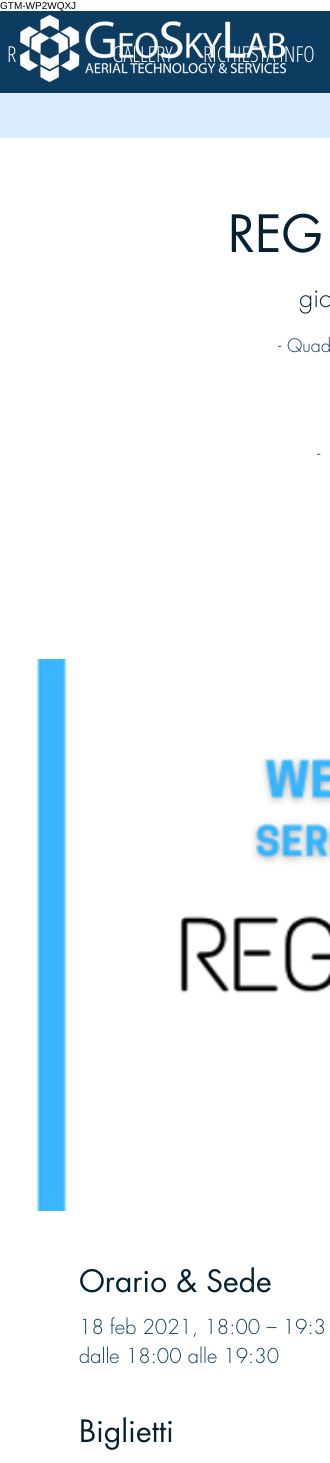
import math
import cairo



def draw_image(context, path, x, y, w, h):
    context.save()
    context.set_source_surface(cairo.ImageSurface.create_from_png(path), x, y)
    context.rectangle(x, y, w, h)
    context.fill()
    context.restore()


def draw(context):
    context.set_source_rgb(1, 1, 1)
    context.paint()
    context.set_source_rgb(12 / 255, 60 / 255, 96 / 255)
    context.rectangle(0, 11, 330, 82)
    context.fill()
    draw_image(context, "images/1.png", 20, 15, 266, 67)
    draw_image(context, "images/2.png", 36, 659, 294, 552)
    context.set_source_rgb(218 / 255, 237 / 255, 1)
    context.rectangle(0, 93, 330, 45)
    context.fill()
    context.select_font_face("Liberation Sans")
    context.set_font_size(10)
    context.set_source_rgb(0, 0, 0)
    context.move_to(0, 9)
    context.show_text("GTM-WP2WQXJ")
    context.select_font_face("Open Sans Condensed Light")
    context.set_font_size(22)
    context.set_source_rgb(1, 1, 1)
    context.move_to(7, 62)
    context.show_text("R")
    context.move_to(112, 62)
    context.show_text("GALLERY")
    context.move_to(203, 62)
    context.show_text("RICHIESTA INFO")
    context.select_font_face("futura")
    context.set_font_size(50)
    context.set_source_rgb(6 / 255, 33 / 255, 52 / 255)
    context.move_to(228, 252)
    context.show_text("REG")
    context.select_font_face("futura Light")
    context.set_font_size(25)
    context.move_to(299, 307)
    context.show_text("gio")
    context.set_font_size(18)
    context.set_source_rgb(12 / 255, 60 / 255, 96 / 255)
    context.move_to(278, 352)
    context.show_text("- Quad")
    context.move_to(317, 460)
    context.show_text("-")
    context.select_font_face("futura")
    context.set_font_size(30)
    context.set_source_rgb(6 / 255, 33 / 255, 52 / 255)
    context.move_to(79, 1292)
    context.show_text("Orario & Sede")
    context.select_font_face("futura Light")
    context.set_font_size(20)
    context.set_source_rgb(12 / 255, 60 / 255, 96 / 255)
    context.move_to(79, 1334)
    context.show_text("18 feb 2021, 18:00 – 19:3")
    context.move_to(79, 1363)
    context.show_text("dalle 18:00 alle 19:30")
    context.select_font_face("futura")
    context.set_font_size(30)
    context.set_source_rgb(6 / 255, 33 / 255, 52 / 255)
    context.move_to(79, 1442)
    context.show_text("Biglietti")


surface = cairo.ImageSurface(cairo.Format.RGB24, 330, 1463)
context = cairo.Context(surface)
options = cairo.FontOptions()
options.set_hint_metrics(cairo.HintMetrics.OFF)
options.set_hint_style(cairo.HintStyle.NONE)
context.set_font_options(options)
context.set_miter_limit(4)
draw(context)
surface.write_to_png("out.png")
